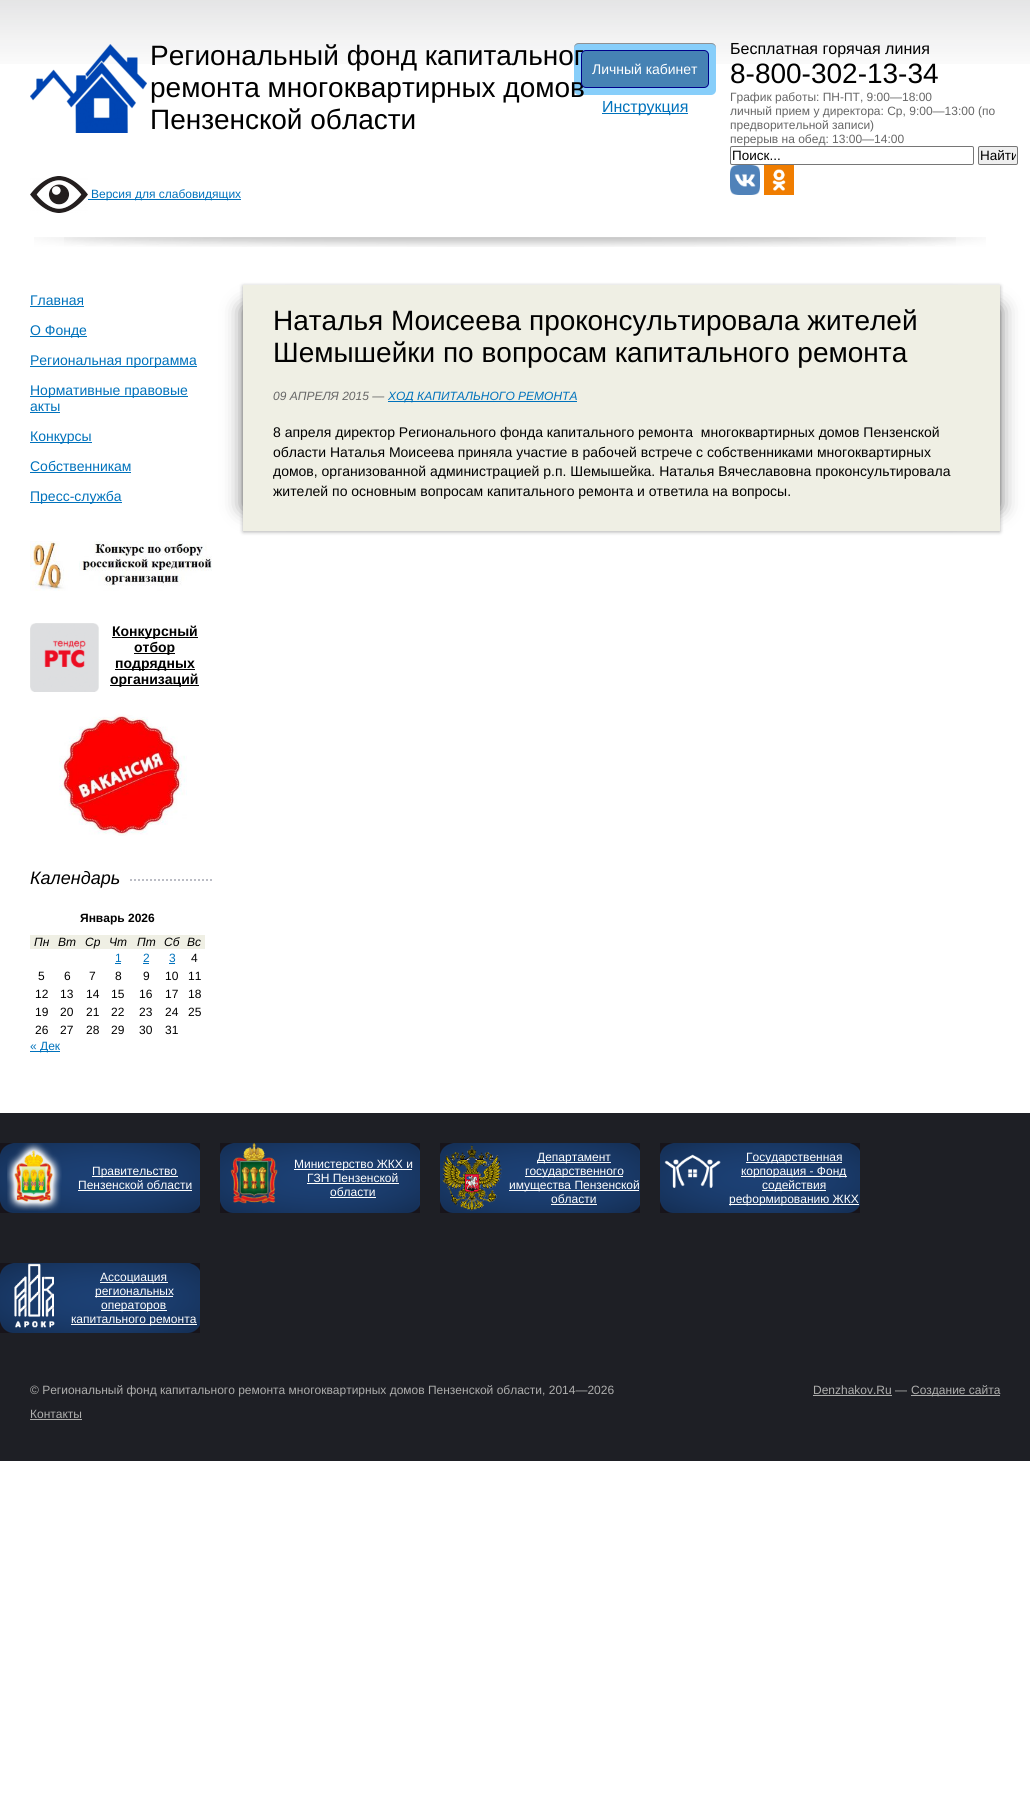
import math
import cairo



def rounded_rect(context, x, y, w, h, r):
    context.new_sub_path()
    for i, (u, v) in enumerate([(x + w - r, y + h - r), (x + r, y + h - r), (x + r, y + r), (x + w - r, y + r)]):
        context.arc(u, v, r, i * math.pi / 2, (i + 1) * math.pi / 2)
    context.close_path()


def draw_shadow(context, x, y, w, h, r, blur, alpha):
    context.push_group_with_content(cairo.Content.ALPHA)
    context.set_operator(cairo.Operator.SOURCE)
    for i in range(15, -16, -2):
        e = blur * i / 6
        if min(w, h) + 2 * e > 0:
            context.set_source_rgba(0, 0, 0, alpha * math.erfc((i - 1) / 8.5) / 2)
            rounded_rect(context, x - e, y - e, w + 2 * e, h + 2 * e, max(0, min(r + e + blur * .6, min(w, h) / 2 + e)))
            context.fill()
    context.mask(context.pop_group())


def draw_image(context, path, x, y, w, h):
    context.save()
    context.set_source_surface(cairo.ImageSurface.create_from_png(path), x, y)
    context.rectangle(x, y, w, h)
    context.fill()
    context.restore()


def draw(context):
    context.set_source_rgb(1, 1, 1)
    context.paint()
    draw_image(context, "images/1.png", 0, 0, 1030, 64)
    draw_image(context, "images/2.png", 34, 237, 922, 10)
    draw_image(context, "images/3.png", 64, 237, 922, 10)
    draw_image(context, "images/4.png", 30, 44, 117, 89)
    context.set_source_rgb(135 / 255, 206 / 255, 250 / 255)
    rounded_rect(context, 574, 43, 142, 52, 5)
    context.fill()
    context.set_source_rgb(144 / 255, 145 / 255, 147 / 255)
    context.new_path()
    context.move_to(579, 44)
    context.line_to(711, 44)
    context.curve_to(714, 44, 716, 46, 716, 49)
    context.line_to(716, 48)
    context.curve_to(716, 45, 714, 43, 711, 43)
    context.line_to(579, 43)
    context.curve_to(576, 43, 574, 45, 574, 48)
    context.line_to(574, 49)
    context.curve_to(574, 46, 576, 44, 579, 44)
    context.close_path()
    context.fill()
    context.set_source_rgb(0, 114 / 255, 188 / 255)
    context.rectangle(602, 113, 86, 1)
    context.fill()
    rounded_rect(context, 730.5, 146.5, 243, 18, 1.5)
    context.set_source_rgb(118 / 255, 118 / 255, 118 / 255)
    context.set_line_width(1)
    context.stroke()
    context.set_source_rgb(239 / 255, 239 / 255, 239 / 255)
    rounded_rect(context, 978.5, 146.5, 39, 18, 1.5)
    context.fill_preserve()
    context.set_source_rgb(118 / 255, 118 / 255, 118 / 255)
    context.stroke()
    draw_image(context, "images/5.png", 730, 165, 30, 30)
    draw_image(context, "images/6.png", 764, 165, 30, 30)
    draw_image(context, "images/7.png", 30, 176, 58, 37)
    context.set_source_rgb(0, 114 / 255, 188 / 255)
    context.rectangle(88, 199, 153, 1)
    context.fill()
    context.rectangle(30, 306, 54, 1)
    context.fill()
    context.rectangle(30, 336, 57, 1)
    context.fill()
    context.rectangle(30, 366, 167, 1)
    context.fill()
    context.rectangle(30, 396, 158, 1)
    context.fill()
    context.rectangle(30, 412, 30, 1)
    context.fill()
    context.rectangle(30, 442, 62, 1)
    context.fill()
    context.rectangle(30, 472, 101, 1)
    context.fill()
    context.rectangle(30, 502, 92, 1)
    context.fill()
    draw_image(context, "images/8.png", 30, 541, 182, 50)
    draw_image(context, "images/9.png", 30, 623, 69, 69)
    context.set_source_rgb(0, 0, 0)
    context.rectangle(112, 637, 86, 1)
    context.fill()
    context.rectangle(134, 653, 41, 1)
    context.fill()
    context.rectangle(115, 669, 80, 1)
    context.fill()
    context.rectangle(110, 685, 89, 1)
    context.fill()
    draw_image(context, "images/10.png", 59, 714, 128, 122)
    context.new_path()
    context.move_to(30, 880)
    context.line_to(214, 880)
    context.set_source_rgb(187 / 255, 189 / 255, 197 / 255)
    context.set_line_width(2)
    context.set_dash([2, 2])
    context.stroke()
    context.set_source_rgb(1, 1, 1)
    context.rectangle(30, 879, 98, 2)
    context.fill()
    context.set_source_rgb(239 / 255, 239 / 255, 228 / 255)
    context.rectangle(30, 935, 175, 14)
    context.fill()
    context.set_source_rgb(0, 114 / 255, 188 / 255)
    context.rectangle(115, 963, 6, 1)
    context.fill()
    context.rectangle(143, 963, 6, 1)
    context.fill()
    context.rectangle(169, 963, 6, 1)
    context.fill()
    context.rectangle(30, 1051, 30, 1)
    context.fill()
    context.set_source_rgb(0, 0, 0)
    draw_shadow(context, 289, 308, 711, 200, 0, 10, 0.5)
    draw_shadow(context, 243, 308, 711, 200, 0, 10, 0.5)
    draw_shadow(context, 243, 286, 757, 246, 0, 2, 0.3)
    context.set_source_rgb(239 / 255, 239 / 255, 228 / 255)
    context.rectangle(243, 285, 757, 246)
    context.fill()
    context.set_source_rgb(0, 114 / 255, 188 / 255)
    context.rectangle(388, 401, 189, 1)
    context.fill()
    context.set_source_rgb(30 / 255, 31 / 255, 37 / 255)
    context.rectangle(0, 1113, 1030, 348)
    context.fill()
    draw_image(context, "images/11.png", 0, 1143, 200, 70)
    draw_image(context, "images/12.png", 7, 1143, 55, 68)
    context.set_source_rgb(1, 1, 1)
    context.rectangle(92, 1176, 86, 1)
    context.fill()
    context.rectangle(78, 1190, 114, 1)
    context.fill()
    draw_image(context, "images/11.png", 220, 1143, 200, 70)
    draw_image(context, "images/13.png", 230, 1143, 48, 61)
    context.rectangle(294, 1169, 118, 1)
    context.fill()
    context.rectangle(307, 1183, 92, 1)
    context.fill()
    context.rectangle(330, 1197, 46, 1)
    context.fill()
    draw_image(context, "images/11.png", 440, 1143, 200, 70)
    draw_image(context, "images/14.png", 442, 1145, 60, 66)
    context.rectangle(537, 1162, 74, 1)
    context.fill()
    context.rectangle(525, 1176, 98, 1)
    context.fill()
    context.rectangle(509, 1190, 130, 1)
    context.fill()
    context.rectangle(551, 1204, 46, 1)
    context.fill()
    draw_image(context, "images/11.png", 660, 1143, 200, 70)
    draw_image(context, "images/15.png", 664, 1154, 57, 34)
    context.rectangle(746, 1162, 96, 1)
    context.fill()
    context.rectangle(741, 1176, 106, 1)
    context.fill()
    context.rectangle(762, 1190, 64, 1)
    context.fill()
    context.rectangle(729, 1204, 130, 1)
    context.fill()
    draw_image(context, "images/11.png", 0, 1263, 200, 70)
    draw_image(context, "images/16.png", 14, 1263, 41, 65)
    context.rectangle(100, 1282, 68, 1)
    context.fill()
    context.rectangle(95, 1296, 78, 1)
    context.fill()
    context.rectangle(101, 1310, 66, 1)
    context.fill()
    context.rectangle(71, 1324, 126, 1)
    context.fill()
    context.set_source_rgb(174 / 255, 174 / 255, 173 / 255)
    context.rectangle(813, 1395, 79, 1)
    context.fill()
    context.rectangle(911, 1395, 89, 1)
    context.fill()
    context.rectangle(30, 1419, 52, 1)
    context.fill()
    context.select_font_face("Liberation Sans")
    context.set_font_size(28)
    context.set_source_rgb(0, 0, 0)
    context.move_to(150, 65)
    context.show_text("Региональный фонд капитальног")
    context.move_to(150, 97)
    context.show_text("ремонта многоквартирных домов")
    context.move_to(150, 129)
    context.show_text("Пензенской области")
    context.set_source_rgb(70 / 255, 130 / 255, 180 / 255)
    rounded_rect(context, 581.5, 50.5, 127, 37, 4.5)
    context.fill_preserve()
    context.set_source_rgb(0, 0, 139 / 255)
    context.set_line_width(1)
    context.set_dash([])
    context.stroke()
    context.set_font_size(14)
    context.set_source_rgb(1, 1, 1)
    context.move_to(592, 74)
    context.show_text("Личный кабинет")
    context.set_font_size(16)
    context.set_source_rgb(0, 114 / 255, 188 / 255)
    context.move_to(602, 112)
    context.show_text("Инструкция")
    context.set_source_rgb(0, 0, 0)
    context.move_to(730, 54)
    context.show_text("Бесплатная горячая линия")
    context.set_font_size(28)
    context.move_to(730, 83)
    context.show_text("8-800-302-13-34")
    context.set_font_size(12)
    context.set_source_rgb(102 / 255, 102 / 255, 102 / 255)
    context.move_to(730, 101)
    context.show_text("График работы: ПН-ПТ, 9:00—18:00")
    context.move_to(730, 115)
    context.show_text("личный прием у директора: Ср, 9:00—13:00 (по")
    context.move_to(730, 129)
    context.show_text("предворительной записи)")
    context.move_to(730, 143)
    context.show_text("перерыв на обед: 13:00—14:00")
    context.set_font_size(13.5)
    context.set_source_rgb(0, 0, 0)
    context.move_to(732, 160)
    context.show_text("Поиск...")
    context.save()
    context.rectangle(980, 148, 36, 15)
    context.clip()
    context.move_to(980, 160)
    context.show_text("Найти")
    context.restore()
    context.set_font_size(12)
    context.set_source_rgb(0, 114 / 255, 188 / 255)
    context.move_to(91, 198)
    context.show_text("Версия для слабовидящих")
    context.set_font_size(14)
    context.move_to(30, 305)
    context.show_text("Главная")
    context.move_to(30, 335)
    context.show_text("О Фонде")
    context.move_to(30, 365)
    context.show_text("Региональная программа")
    context.move_to(30, 395)
    context.show_text("Нормативные правовые")
    context.move_to(30, 411)
    context.show_text("акты")
    context.move_to(30, 441)
    context.show_text("Конкурсы")
    context.move_to(30, 471)
    context.show_text("Собственникам")
    context.move_to(30, 501)
    context.show_text("Пресс-служба")
    context.select_font_face("Liberation Sans", cairo.FontSlant.NORMAL, cairo.FontWeight.BOLD)
    context.set_source_rgb(0, 0, 0)
    context.move_to(112, 636)
    context.show_text("Конкурсный")
    context.move_to(134, 652)
    context.show_text("отбор")
    context.move_to(115, 668)
    context.show_text("подрядных")
    context.move_to(110, 684)
    context.show_text("организаций")
    context.select_font_face("Liberation Sans", cairo.FontSlant.ITALIC)
    context.set_font_size(18)
    context.move_to(30, 884)
    context.show_text("Календарь")
    context.select_font_face("Liberation Sans", cairo.FontSlant.NORMAL, cairo.FontWeight.BOLD)
    context.set_font_size(12)
    context.move_to(80, 922)
    context.show_text("Январь 2026")
    context.select_font_face("Liberation Sans", cairo.FontSlant.ITALIC)
    context.move_to(34, 946)
    context.show_text("Пн")
    context.move_to(58, 946)
    context.show_text("Вт")
    context.move_to(85, 946)
    context.show_text("Ср")
    context.move_to(109, 946)
    context.show_text("Чт")
    context.move_to(137, 946)
    context.show_text("Пт")
    context.move_to(164, 946)
    context.show_text("Сб")
    context.move_to(187, 946)
    context.show_text("Вс")
    context.select_font_face("Liberation Sans")
    context.set_source_rgb(0, 114 / 255, 188 / 255)
    context.move_to(115, 962)
    context.show_text("1")
    context.move_to(143, 962)
    context.show_text("2")
    context.move_to(169, 962)
    context.show_text("3")
    context.set_source_rgb(0, 0, 0)
    context.move_to(191, 962)
    context.show_text("4")
    context.move_to(38, 980)
    context.show_text("5")
    context.move_to(64, 980)
    context.show_text("6")
    context.move_to(89, 980)
    context.show_text("7")
    context.move_to(115, 980)
    context.show_text("8")
    context.move_to(143, 980)
    context.show_text("9")
    context.move_to(165, 980)
    context.show_text("10")
    context.move_to(188, 980)
    context.show_text("11")
    context.move_to(35, 998)
    context.show_text("12")
    context.move_to(60, 998)
    context.show_text("13")
    context.move_to(86, 998)
    context.show_text("14")
    context.move_to(111, 998)
    context.show_text("15")
    context.move_to(139, 998)
    context.show_text("16")
    context.move_to(165, 998)
    context.show_text("17")
    context.move_to(188, 998)
    context.show_text("18")
    context.move_to(35, 1016)
    context.show_text("19")
    context.move_to(60, 1016)
    context.show_text("20")
    context.move_to(86, 1016)
    context.show_text("21")
    context.move_to(111, 1016)
    context.show_text("22")
    context.move_to(139, 1016)
    context.show_text("23")
    context.move_to(165, 1016)
    context.show_text("24")
    context.move_to(188, 1016)
    context.show_text("25")
    context.move_to(35, 1034)
    context.show_text("26")
    context.move_to(60, 1034)
    context.show_text("27")
    context.move_to(86, 1034)
    context.show_text("28")
    context.move_to(111, 1034)
    context.show_text("29")
    context.move_to(139, 1034)
    context.show_text("30")
    context.move_to(165, 1034)
    context.show_text("31")
    context.set_source_rgb(0, 114 / 255, 188 / 255)
    context.move_to(30, 1050)
    context.show_text("« Дек")
    context.set_font_size(28)
    context.set_source_rgb(0, 0, 0)
    context.move_to(273, 330)
    context.show_text("Наталья Моисеева проконсультировала жителей")
    context.move_to(273, 362)
    context.show_text("Шемышейки по вопросам капитального ремонта")
    context.select_font_face("Liberation Sans", cairo.FontSlant.ITALIC)
    context.set_font_size(12)
    context.set_source_rgb(102 / 255, 102 / 255, 102 / 255)
    context.move_to(273, 400)
    context.show_text("09 АПРЕЛЯ 2015 —")
    context.set_source_rgb(0, 114 / 255, 188 / 255)
    context.move_to(388, 400)
    context.show_text("ХОД КАПИТАЛЬНОГО РЕМОНТА")
    context.select_font_face("Liberation Sans")
    context.set_font_size(14)
    context.set_source_rgb(0, 0, 0)
    context.move_to(273, 437)
    context.show_text("8 апреля директор Регионального фонда капитального ремонта  многоквартирных домов Пензенской")
    context.move_to(273, 457)
    context.show_text("области Наталья Моисеева приняла участие в рабочей встрече с собственниками многоквартирных")
    context.move_to(273, 476)
    context.show_text("домов, организованной администрацией р.п. Шемышейка. Наталья Вячеславовна проконсультировала")
    context.move_to(273, 496)
    context.show_text("жителей по основным вопросам капитального ремонта и ответила на вопросы.")
    context.set_font_size(12)
    context.set_source_rgb(1, 1, 1)
    context.move_to(92, 1175)
    context.show_text("Правительство")
    context.move_to(78, 1189)
    context.show_text("Пензенской области")
    context.move_to(294, 1168)
    context.show_text("Министерство ЖКХ и")
    context.move_to(307, 1182)
    context.show_text("ГЗН Пензенской")
    context.move_to(330, 1196)
    context.show_text("области")
    context.move_to(537, 1161)
    context.show_text("Департамент")
    context.move_to(525, 1175)
    context.show_text("государственного")
    context.move_to(509, 1189)
    context.show_text("имущества Пензенской")
    context.move_to(551, 1203)
    context.show_text("области")
    context.move_to(746, 1161)
    context.show_text("Государственная")
    context.move_to(741, 1175)
    context.show_text("корпорация - Фонд")
    context.move_to(762, 1189)
    context.show_text("содействия")
    context.move_to(729, 1203)
    context.show_text("реформированию ЖКХ")
    context.move_to(100, 1281)
    context.show_text("Ассоциация")
    context.move_to(95, 1295)
    context.show_text("региональных")
    context.move_to(101, 1309)
    context.show_text("операторов")
    context.move_to(71, 1323)
    context.show_text("капитального ремонта")
    context.set_source_rgb(174 / 255, 174 / 255, 173 / 255)
    context.move_to(30, 1394)
    context.show_text("© Региональный фонд капитального ремонта многоквартирных домов Пензенской области, 2014—2026")
    context.move_to(813, 1394)
    context.show_text("Denzhakov.Ru —")
    context.move_to(911, 1394)
    context.show_text("Создание сайта")
    context.move_to(30, 1418)
    context.show_text("Контакты")


surface = cairo.ImageSurface(cairo.Format.RGB24, 1030, 1795)
context = cairo.Context(surface)
options = cairo.FontOptions()
options.set_hint_metrics(cairo.HintMetrics.OFF)
options.set_hint_style(cairo.HintStyle.NONE)
context.set_font_options(options)
context.set_miter_limit(4)
draw(context)
surface.write_to_png("out.png")
